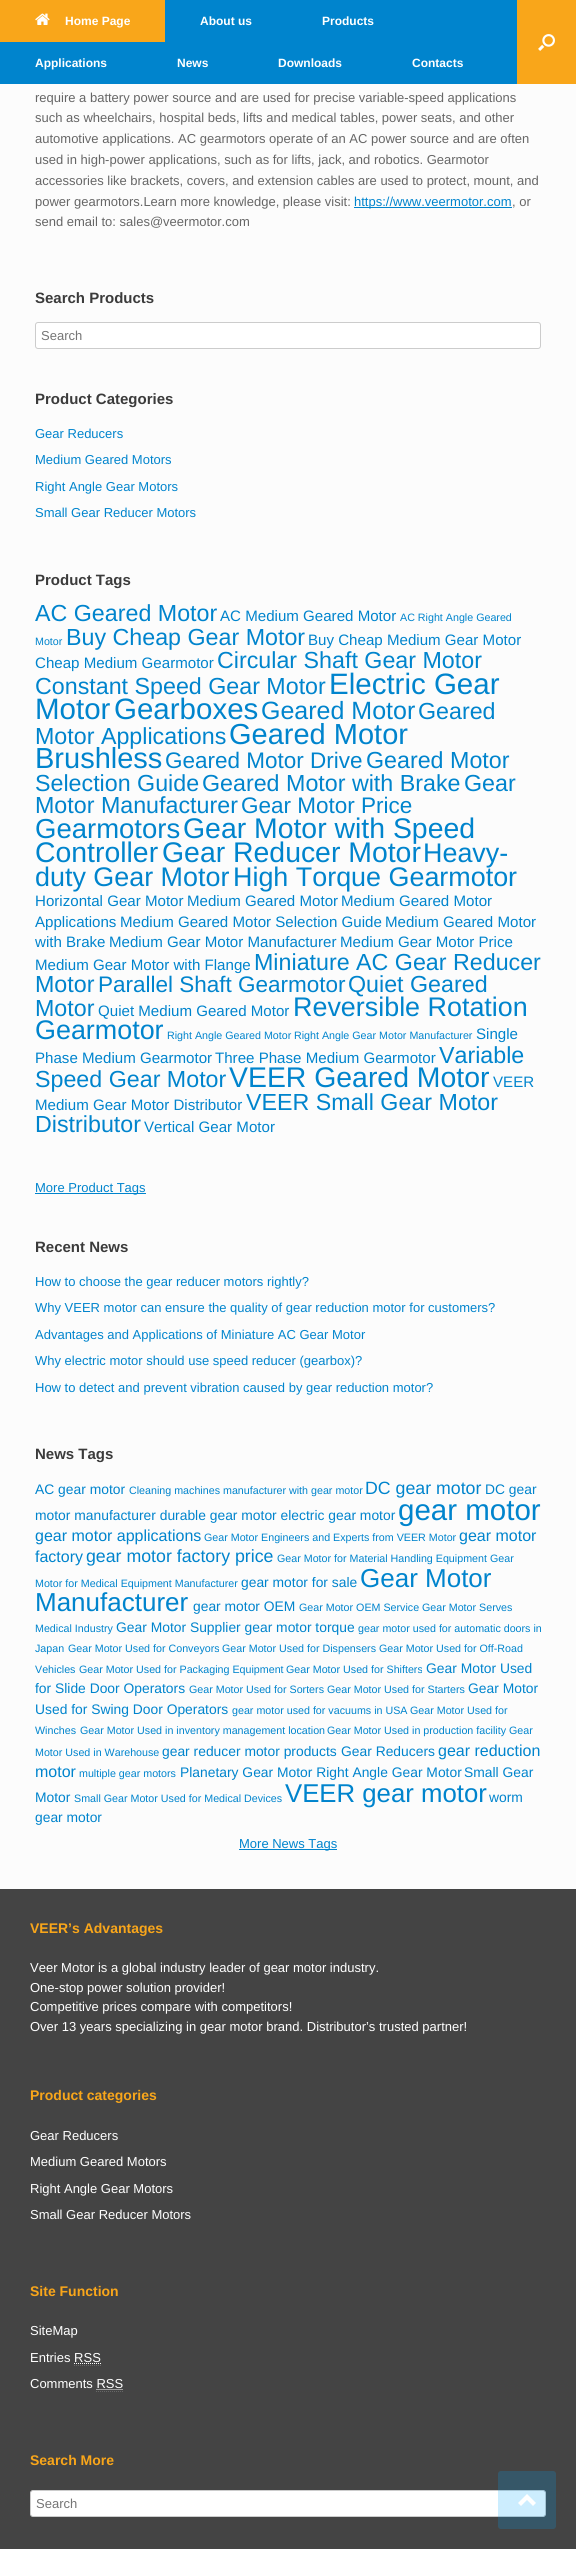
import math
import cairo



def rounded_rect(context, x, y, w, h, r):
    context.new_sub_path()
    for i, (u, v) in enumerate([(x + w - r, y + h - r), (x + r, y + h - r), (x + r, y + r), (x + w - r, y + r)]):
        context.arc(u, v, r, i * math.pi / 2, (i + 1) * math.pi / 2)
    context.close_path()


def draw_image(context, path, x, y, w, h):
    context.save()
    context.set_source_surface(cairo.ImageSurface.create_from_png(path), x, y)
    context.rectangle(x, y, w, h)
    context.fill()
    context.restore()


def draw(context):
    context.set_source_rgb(68 / 255, 68 / 255, 68 / 255)
    context.paint()
    context.set_source_rgb(0, 132 / 255, 205 / 255)
    context.rectangle(0, 0, 517, 84)
    context.fill()
    context.set_source_rgb(249 / 255, 166 / 255, 26 / 255)
    context.rectangle(0, 0, 165, 42)
    context.fill()
    draw_image(context, "images/1.png", 35, 13, 15, 12)
    context.rectangle(517, 0, 59, 84)
    context.fill()
    draw_image(context, "images/2.png", 538, 34, 17, 17)
    context.set_source_rgb(252 / 255, 252 / 255, 252 / 255)
    context.rectangle(0, 84, 576, 1805)
    context.fill()
    context.set_source_rgb(0, 132 / 255, 205 / 255)
    context.rectangle(354, 207, 158, 1)
    context.fill()
    context.set_source_rgb(1, 1, 1)
    rounded_rect(context, 35.5, 322.5, 505, 26, 2.5)
    context.fill_preserve()
    context.set_source_rgb(204 / 255, 204 / 255, 204 / 255)
    context.set_line_width(1)
    context.stroke()
    context.set_source_rgb(0, 132 / 255, 205 / 255)
    context.rectangle(35, 1193, 111, 1)
    context.fill()
    context.rectangle(239, 1849, 98, 1)
    context.fill()
    context.new_path()
    context.move_to(74, 2365.5)
    context.line_to(101, 2365.5)
    context.set_source_rgb(102 / 255, 102 / 255, 102 / 255)
    context.set_dash([1, 1])
    context.stroke()
    context.new_path()
    context.move_to(74, 2363.5)
    context.line_to(101, 2363.5)
    context.set_source_rgb(1, 1, 1)
    context.stroke()
    context.new_path()
    context.move_to(96, 2391.5)
    context.line_to(123, 2391.5)
    context.set_source_rgb(102 / 255, 102 / 255, 102 / 255)
    context.stroke()
    context.new_path()
    context.move_to(96.5, 2389.5)
    context.line_to(123, 2389.5)
    context.set_source_rgb(1, 1, 1)
    context.stroke()
    rounded_rect(context, 30.5, 2490.5, 515, 26, 2.5)
    context.fill_preserve()
    context.set_source_rgb(204 / 255, 204 / 255, 204 / 255)
    context.set_dash([])
    context.stroke()
    context.set_source_rgba(0, 166 / 255, 250 / 255, 0.2)
    rounded_rect(context, 498, 2471, 58, 58, 3)
    context.fill()
    context.set_source_rgb(1, 1, 1)
    context.new_path()
    context.move_to(536, 2503)
    context.line_to(527, 2494)
    context.line_to(518, 2503)
    context.line_to(521, 2506)
    context.line_to(527, 2500)
    context.line_to(533, 2506)
    context.close_path()
    context.fill()
    context.select_font_face("Liberation Sans", cairo.FontSlant.NORMAL, cairo.FontWeight.BOLD)
    context.set_font_size(12)
    context.move_to(65, 25)
    context.show_text("Home Page")
    context.move_to(200, 25)
    context.show_text("About us")
    context.move_to(322, 25)
    context.show_text("Products")
    context.move_to(35, 67)
    context.show_text("Applications")
    context.move_to(177, 67)
    context.show_text("News")
    context.move_to(278, 67)
    context.show_text("Downloads")
    context.move_to(412, 67)
    context.show_text("Contacts")
    context.select_font_face("Liberation Sans")
    context.set_font_size(13)
    context.set_source_rgb(102 / 255, 102 / 255, 102 / 255)
    context.move_to(35, 102)
    context.show_text("require a battery power source and are used for precise variable-speed applications")
    context.move_to(35, 122)
    context.show_text("such as wheelchairs, hospital beds, lifts and medical tables, power seats, and other")
    context.move_to(35, 143)
    context.show_text("automotive applications. AC gearmotors operate of an AC power source and are often")
    context.move_to(35, 164)
    context.show_text("used in high-power applications, such as for lifts, jack, and robotics. Gearmotor")
    context.move_to(35, 185)
    context.show_text("accessories like brackets, covers, and extension cables are used to protect, mount, and")
    context.move_to(35, 206)
    context.show_text("power gearmotors.Learn more knowledge, please visit:")
    context.set_source_rgb(0, 132 / 255, 205 / 255)
    context.move_to(354, 206)
    context.show_text("https://www.veermotor.com")
    context.set_source_rgb(102 / 255, 102 / 255, 102 / 255)
    context.move_to(512, 206)
    context.show_text(", or")
    context.move_to(35, 226)
    context.show_text("send email to: sales@veermotor.com")
    context.select_font_face("Liberation Sans", cairo.FontSlant.NORMAL, cairo.FontWeight.BOLD)
    context.set_font_size(15)
    context.set_source_rgb(59 / 255, 59 / 255, 59 / 255)
    context.move_to(35, 303)
    context.show_text("Search Products")
    context.select_font_face("Liberation Sans")
    context.set_font_size(13)
    context.set_source_rgb(117 / 255, 117 / 255, 117 / 255)
    context.move_to(41, 340)
    context.show_text("Search")
    context.select_font_face("Liberation Sans", cairo.FontSlant.NORMAL, cairo.FontWeight.BOLD)
    context.set_font_size(15)
    context.set_source_rgb(59 / 255, 59 / 255, 59 / 255)
    context.move_to(35, 404)
    context.show_text("Product Categories")
    context.select_font_face("Liberation Sans")
    context.set_font_size(13)
    context.set_source_rgb(0, 132 / 255, 205 / 255)
    context.move_to(35, 438)
    context.show_text("Gear Reducers")
    context.move_to(35, 464)
    context.show_text("Medium Geared Motors")
    context.move_to(35, 491)
    context.show_text("Right Angle Gear Motors")
    context.move_to(35, 517)
    context.show_text("Small Gear Reducer Motors")
    context.select_font_face("Liberation Sans", cairo.FontSlant.NORMAL, cairo.FontWeight.BOLD)
    context.set_font_size(15)
    context.set_source_rgb(59 / 255, 59 / 255, 59 / 255)
    context.move_to(35, 585)
    context.show_text("Product Tags")
    context.select_font_face("Liberation Sans")
    context.set_font_size(23.25)
    context.set_source_rgb(0, 132 / 255, 205 / 255)
    context.move_to(35, 621)
    context.show_text("AC Geared Motor")
    context.set_font_size(15.1)
    context.move_to(220, 621)
    context.show_text("AC Medium Geared Motor")
    context.set_font_size(10.7)
    context.move_to(400, 621)
    context.show_text("AC Right Angle Geared")
    context.move_to(35, 645)
    context.show_text("Motor")
    context.set_font_size(23.25)
    context.move_to(66, 645)
    context.show_text("Buy Cheap Gear Motor")
    context.set_font_size(15.1)
    context.move_to(308, 645)
    context.show_text("Buy Cheap Medium Gear Motor")
    context.move_to(35, 668)
    context.show_text("Cheap Medium Gearmotor")
    context.set_font_size(23.25)
    context.move_to(217, 668)
    context.show_text("Circular Shaft Gear Motor")
    context.move_to(35, 694)
    context.show_text("Constant Speed Gear Motor")
    context.set_font_size(29.5)
    context.move_to(329, 694)
    context.show_text("Electric Gear")
    context.move_to(35, 719)
    context.show_text("Motor")
    context.move_to(114, 719)
    context.show_text("Gearboxes")
    context.set_font_size(25)
    context.move_to(261, 719)
    context.show_text("Geared Motor")
    context.set_font_size(23.25)
    context.move_to(418, 719)
    context.show_text("Geared")
    context.move_to(35, 744)
    context.show_text("Motor Applications")
    context.set_font_size(29)
    context.move_to(229, 744)
    context.show_text("Geared Motor")
    context.move_to(35, 768)
    context.show_text("Brushless")
    context.set_font_size(22.5)
    context.move_to(165, 768)
    context.show_text("Geared Motor Drive")
    context.set_font_size(23.25)
    context.move_to(366, 768)
    context.show_text("Geared Motor")
    context.move_to(35, 791)
    context.show_text("Selection Guide")
    context.move_to(202, 791)
    context.show_text("Geared Motor with Brake")
    context.move_to(464, 791)
    context.show_text("Gear")
    context.move_to(35, 813)
    context.show_text("Motor Manufacturer")
    context.set_font_size(22.5)
    context.move_to(241, 813)
    context.show_text("Gear Motor Price")
    context.set_font_size(27.5)
    context.move_to(35, 838)
    context.show_text("Gearmotors")
    context.set_font_size(28.4)
    context.move_to(183, 838)
    context.show_text("Gear Motor with Speed")
    context.move_to(35, 862)
    context.show_text("Controller")
    context.move_to(162, 862)
    context.show_text("Gear Reducer Motor")
    context.set_font_size(26.9)
    context.move_to(423, 862)
    context.show_text("Heavy-")
    context.move_to(35, 886)
    context.show_text("duty Gear Motor")
    context.move_to(233, 886)
    context.show_text("High Torque Gearmotor")
    context.set_font_size(15.1)
    context.move_to(35, 906)
    context.show_text("Horizontal Gear Motor")
    context.move_to(187, 906)
    context.show_text("Medium Geared Motor")
    context.move_to(341, 906)
    context.show_text("Medium Geared Motor")
    context.move_to(35, 927)
    context.show_text("Applications")
    context.move_to(120, 927)
    context.show_text("Medium Geared Motor Selection Guide")
    context.move_to(385, 927)
    context.show_text("Medium Geared Motor")
    context.move_to(35, 947)
    context.show_text("with Brake")
    context.move_to(109, 947)
    context.show_text("Medium Gear Motor Manufacturer")
    context.move_to(340, 947)
    context.show_text("Medium Gear Motor Price")
    context.move_to(35, 970)
    context.show_text("Medium Gear Motor with Flange")
    context.set_font_size(23.25)
    context.move_to(254, 970)
    context.show_text("Miniature AC Gear Reducer")
    context.move_to(35, 992)
    context.show_text("Motor")
    context.set_font_size(22.5)
    context.move_to(98, 992)
    context.show_text("Parallel Shaft Gearmotor")
    context.set_font_size(23.25)
    context.move_to(348, 992)
    context.show_text("Quiet Geared")
    context.move_to(35, 1016)
    context.show_text("Motor")
    context.set_font_size(15.1)
    context.move_to(98, 1016)
    context.show_text("Quiet Medium Geared Motor")
    context.set_font_size(26.9)
    context.move_to(293, 1016)
    context.show_text("Reversible Rotation")
    context.move_to(35, 1039)
    context.show_text("Gearmotor")
    context.set_font_size(10.7)
    context.move_to(167, 1039)
    context.show_text("Right Angle Geared Motor")
    context.move_to(294, 1039)
    context.show_text("Right Angle Gear Motor Manufacturer")
    context.set_font_size(15.1)
    context.move_to(476, 1039)
    context.show_text("Single")
    context.move_to(35, 1063)
    context.show_text("Phase Medium Gearmotor")
    context.move_to(215, 1063)
    context.show_text("Three Phase Medium Gearmotor")
    context.set_font_size(23.25)
    context.move_to(439, 1063)
    context.show_text("Variable")
    context.move_to(35, 1087)
    context.show_text("Speed Gear Motor")
    context.set_font_size(28.4)
    context.move_to(229, 1087)
    context.show_text("VEER Geared Motor")
    context.set_font_size(15.1)
    context.move_to(493, 1087)
    context.show_text("VEER")
    context.move_to(35, 1110)
    context.show_text("Medium Gear Motor Distributor")
    context.set_font_size(23.25)
    context.move_to(246, 1110)
    context.show_text("VEER Small Gear Motor")
    context.move_to(35, 1132)
    context.show_text("Distributor")
    context.set_font_size(15.1)
    context.move_to(144, 1132)
    context.show_text("Vertical Gear Motor")
    context.set_font_size(13)
    context.move_to(35, 1192)
    context.show_text("More Product Tags")
    context.select_font_face("Liberation Sans", cairo.FontSlant.NORMAL, cairo.FontWeight.BOLD)
    context.set_font_size(15)
    context.set_source_rgb(59 / 255, 59 / 255, 59 / 255)
    context.move_to(35, 1252)
    context.show_text("Recent News")
    context.select_font_face("Liberation Sans")
    context.set_font_size(13)
    context.set_source_rgb(0, 132 / 255, 205 / 255)
    context.move_to(35, 1286)
    context.show_text("How to choose the gear reducer motors rightly?")
    context.move_to(35, 1312)
    context.show_text("Why VEER motor can ensure the quality of gear reduction motor for customers?")
    context.move_to(35, 1339)
    context.show_text("Advantages and Applications of Miniature AC Gear Motor")
    context.move_to(35, 1365)
    context.show_text("Why electric motor should use speed reducer (gearbox)?")
    context.move_to(35, 1392)
    context.show_text("How to detect and prevent vibration caused by gear reduction motor?")
    context.select_font_face("Liberation Sans", cairo.FontSlant.NORMAL, cairo.FontWeight.BOLD)
    context.set_font_size(15)
    context.set_source_rgb(59 / 255, 59 / 255, 59 / 255)
    context.move_to(35, 1459)
    context.show_text("News Tags")
    context.select_font_face("Liberation Sans")
    context.set_font_size(13.85)
    context.set_source_rgb(0, 132 / 255, 205 / 255)
    context.move_to(35, 1494)
    context.show_text("AC gear motor")
    context.set_font_size(10.7)
    context.move_to(129, 1494)
    context.show_text("Cleaning machines manufacturer with gear motor")
    context.set_font_size(17.75)
    context.move_to(365, 1494)
    context.show_text("DC gear motor")
    context.set_font_size(13.85)
    context.move_to(485, 1494)
    context.show_text("DC gear")
    context.move_to(35, 1520)
    context.show_text("motor manufacturer durable gear motor electric gear motor")
    context.set_font_size(29.5)
    context.move_to(398, 1520)
    context.show_text("gear motor")
    context.set_font_size(16)
    context.move_to(35, 1541)
    context.show_text("gear motor applications")
    context.set_font_size(10.7)
    context.move_to(204, 1541)
    context.show_text("Gear Motor Engineers and Experts from VEER Motor")
    context.set_font_size(16)
    context.move_to(459, 1541)
    context.show_text("gear motor")
    context.move_to(35, 1562)
    context.show_text("factory")
    context.set_font_size(17.75)
    context.move_to(86, 1562)
    context.show_text("gear motor factory price")
    context.set_font_size(10.7)
    context.move_to(277, 1562)
    context.show_text("Gear Motor for Material Handling Equipment")
    context.move_to(490, 1562)
    context.show_text("Gear")
    context.move_to(35, 1587)
    context.show_text("Motor for Medical Equipment Manufacturer")
    context.set_font_size(13.85)
    context.move_to(241, 1587)
    context.show_text("gear motor for sale")
    context.set_font_size(26)
    context.move_to(360, 1587)
    context.show_text("Gear Motor")
    context.move_to(35, 1611)
    context.show_text("Manufacturer")
    context.set_font_size(13.85)
    context.move_to(193, 1611)
    context.show_text("gear motor OEM")
    context.set_font_size(10.7)
    context.move_to(299, 1611)
    context.show_text("Gear Motor OEM Service")
    context.move_to(422, 1611)
    context.show_text("Gear Motor Serves")
    context.move_to(35, 1632)
    context.show_text("Medical Industry")
    context.set_font_size(13.85)
    context.move_to(116, 1632)
    context.show_text("Gear Motor Supplier gear motor torque")
    context.set_font_size(10.7)
    context.move_to(358, 1632)
    context.show_text("gear motor used for automatic doors in")
    context.move_to(35, 1652)
    context.show_text("Japan")
    context.move_to(68, 1652)
    context.show_text("Gear Motor Used for Conveyors")
    context.move_to(222, 1652)
    context.show_text("Gear Motor Used for Dispensers")
    context.move_to(379, 1652)
    context.show_text("Gear Motor Used for Off-Road")
    context.move_to(35, 1673)
    context.show_text("Vehicles")
    context.move_to(79, 1673)
    context.show_text("Gear Motor Used for Packaging Equipment")
    context.move_to(286, 1673)
    context.show_text("Gear Motor Used for Shifters")
    context.set_font_size(13.85)
    context.move_to(426, 1673)
    context.show_text("Gear Motor Used")
    context.move_to(35, 1693)
    context.show_text("for Slide Door Operators")
    context.set_font_size(10.7)
    context.move_to(189, 1693)
    context.show_text("Gear Motor Used for Sorters")
    context.move_to(327, 1693)
    context.show_text("Gear Motor Used for Starters")
    context.set_font_size(13.85)
    context.move_to(468, 1693)
    context.show_text("Gear Motor")
    context.move_to(35, 1714)
    context.show_text("Used for Swing Door Operators")
    context.set_font_size(10.7)
    context.move_to(232, 1714)
    context.show_text("gear motor used for vacuums in USA")
    context.move_to(410, 1714)
    context.show_text("Gear Motor Used for")
    context.move_to(35, 1734)
    context.show_text("Winches")
    context.move_to(80, 1734)
    context.show_text("Gear Motor Used in inventory management location")
    context.move_to(327, 1734)
    context.show_text("Gear Motor Used in production facility")
    context.move_to(509, 1734)
    context.show_text("Gear")
    context.move_to(35, 1756)
    context.show_text("Motor Used in Warehouse")
    context.set_font_size(13.85)
    context.move_to(162, 1756)
    context.show_text("gear reducer motor products")
    context.move_to(341, 1756)
    context.show_text("Gear Reducers")
    context.set_font_size(16)
    context.move_to(438, 1756)
    context.show_text("gear reduction")
    context.move_to(35, 1777)
    context.show_text("motor")
    context.set_font_size(10.7)
    context.move_to(79, 1777)
    context.show_text("multiple gear motors")
    context.set_font_size(13.85)
    context.move_to(180, 1777)
    context.show_text("Planetary Gear Motor Right Angle Gear Motor")
    context.move_to(464, 1777)
    context.show_text("Small Gear")
    context.move_to(35, 1802)
    context.show_text("Motor")
    context.set_font_size(10.7)
    context.move_to(74, 1802)
    context.show_text("Small Gear Motor Used for Medical Devices")
    context.set_font_size(25.75)
    context.move_to(285, 1802)
    context.show_text("VEER gear motor")
    context.set_font_size(13.85)
    context.move_to(489, 1802)
    context.show_text("worm")
    context.move_to(35, 1822)
    context.show_text("gear motor")
    context.set_font_size(13)
    context.move_to(239, 1848)
    context.show_text("More News Tags")
    context.select_font_face("Liberation Sans", cairo.FontSlant.NORMAL, cairo.FontWeight.BOLD)
    context.set_font_size(14)
    context.set_source_rgb(249 / 255, 166 / 255, 26 / 255)
    context.move_to(30, 1933)
    context.show_text("VEER’s Advantages")
    context.select_font_face("Liberation Sans")
    context.set_font_size(13)
    context.set_source_rgb(1, 1, 1)
    context.move_to(30, 1972)
    context.show_text("Veer Motor is a global industry leader of gear motor industry.")
    context.move_to(30, 1992)
    context.show_text("One-stop power solution provider!")
    context.move_to(30, 2011)
    context.show_text("Competitive prices compare with competitors!")
    context.move_to(30, 2031)
    context.show_text("Over 13 years specializing in gear motor brand. Distributor’s trusted partner!")
    context.select_font_face("Liberation Sans", cairo.FontSlant.NORMAL, cairo.FontWeight.BOLD)
    context.set_font_size(14)
    context.set_source_rgb(249 / 255, 166 / 255, 26 / 255)
    context.move_to(30, 2100)
    context.show_text("Product categories")
    context.select_font_face("Liberation Sans")
    context.set_font_size(13)
    context.set_source_rgb(1, 1, 1)
    context.move_to(30, 2140)
    context.show_text("Gear Reducers")
    context.move_to(30, 2166)
    context.show_text("Medium Geared Motors")
    context.move_to(30, 2193)
    context.show_text("Right Angle Gear Motors")
    context.move_to(30, 2219)
    context.show_text("Small Gear Reducer Motors")
    context.select_font_face("Liberation Sans", cairo.FontSlant.NORMAL, cairo.FontWeight.BOLD)
    context.set_font_size(14)
    context.set_source_rgb(249 / 255, 166 / 255, 26 / 255)
    context.move_to(30, 2296)
    context.show_text("Site Function")
    context.select_font_face("Liberation Sans")
    context.set_font_size(13)
    context.set_source_rgb(1, 1, 1)
    context.move_to(30, 2335)
    context.show_text("SiteMap")
    context.move_to(30, 2362)
    context.show_text("Entries RSS")
    context.move_to(30, 2388)
    context.show_text("Comments RSS")
    context.select_font_face("Liberation Sans", cairo.FontSlant.NORMAL, cairo.FontWeight.BOLD)
    context.set_font_size(14)
    context.set_source_rgb(249 / 255, 166 / 255, 26 / 255)
    context.move_to(30, 2465)
    context.show_text("Search More")
    context.select_font_face("Liberation Sans")
    context.set_font_size(13)
    context.set_source_rgb(117 / 255, 117 / 255, 117 / 255)
    context.move_to(36, 2508)
    context.show_text("Search")


surface = cairo.ImageSurface(cairo.Format.RGB24, 576, 2549)
context = cairo.Context(surface)
options = cairo.FontOptions()
options.set_hint_metrics(cairo.HintMetrics.OFF)
options.set_hint_style(cairo.HintStyle.NONE)
context.set_font_options(options)
context.set_miter_limit(4)
draw(context)
surface.write_to_png("out.png")
